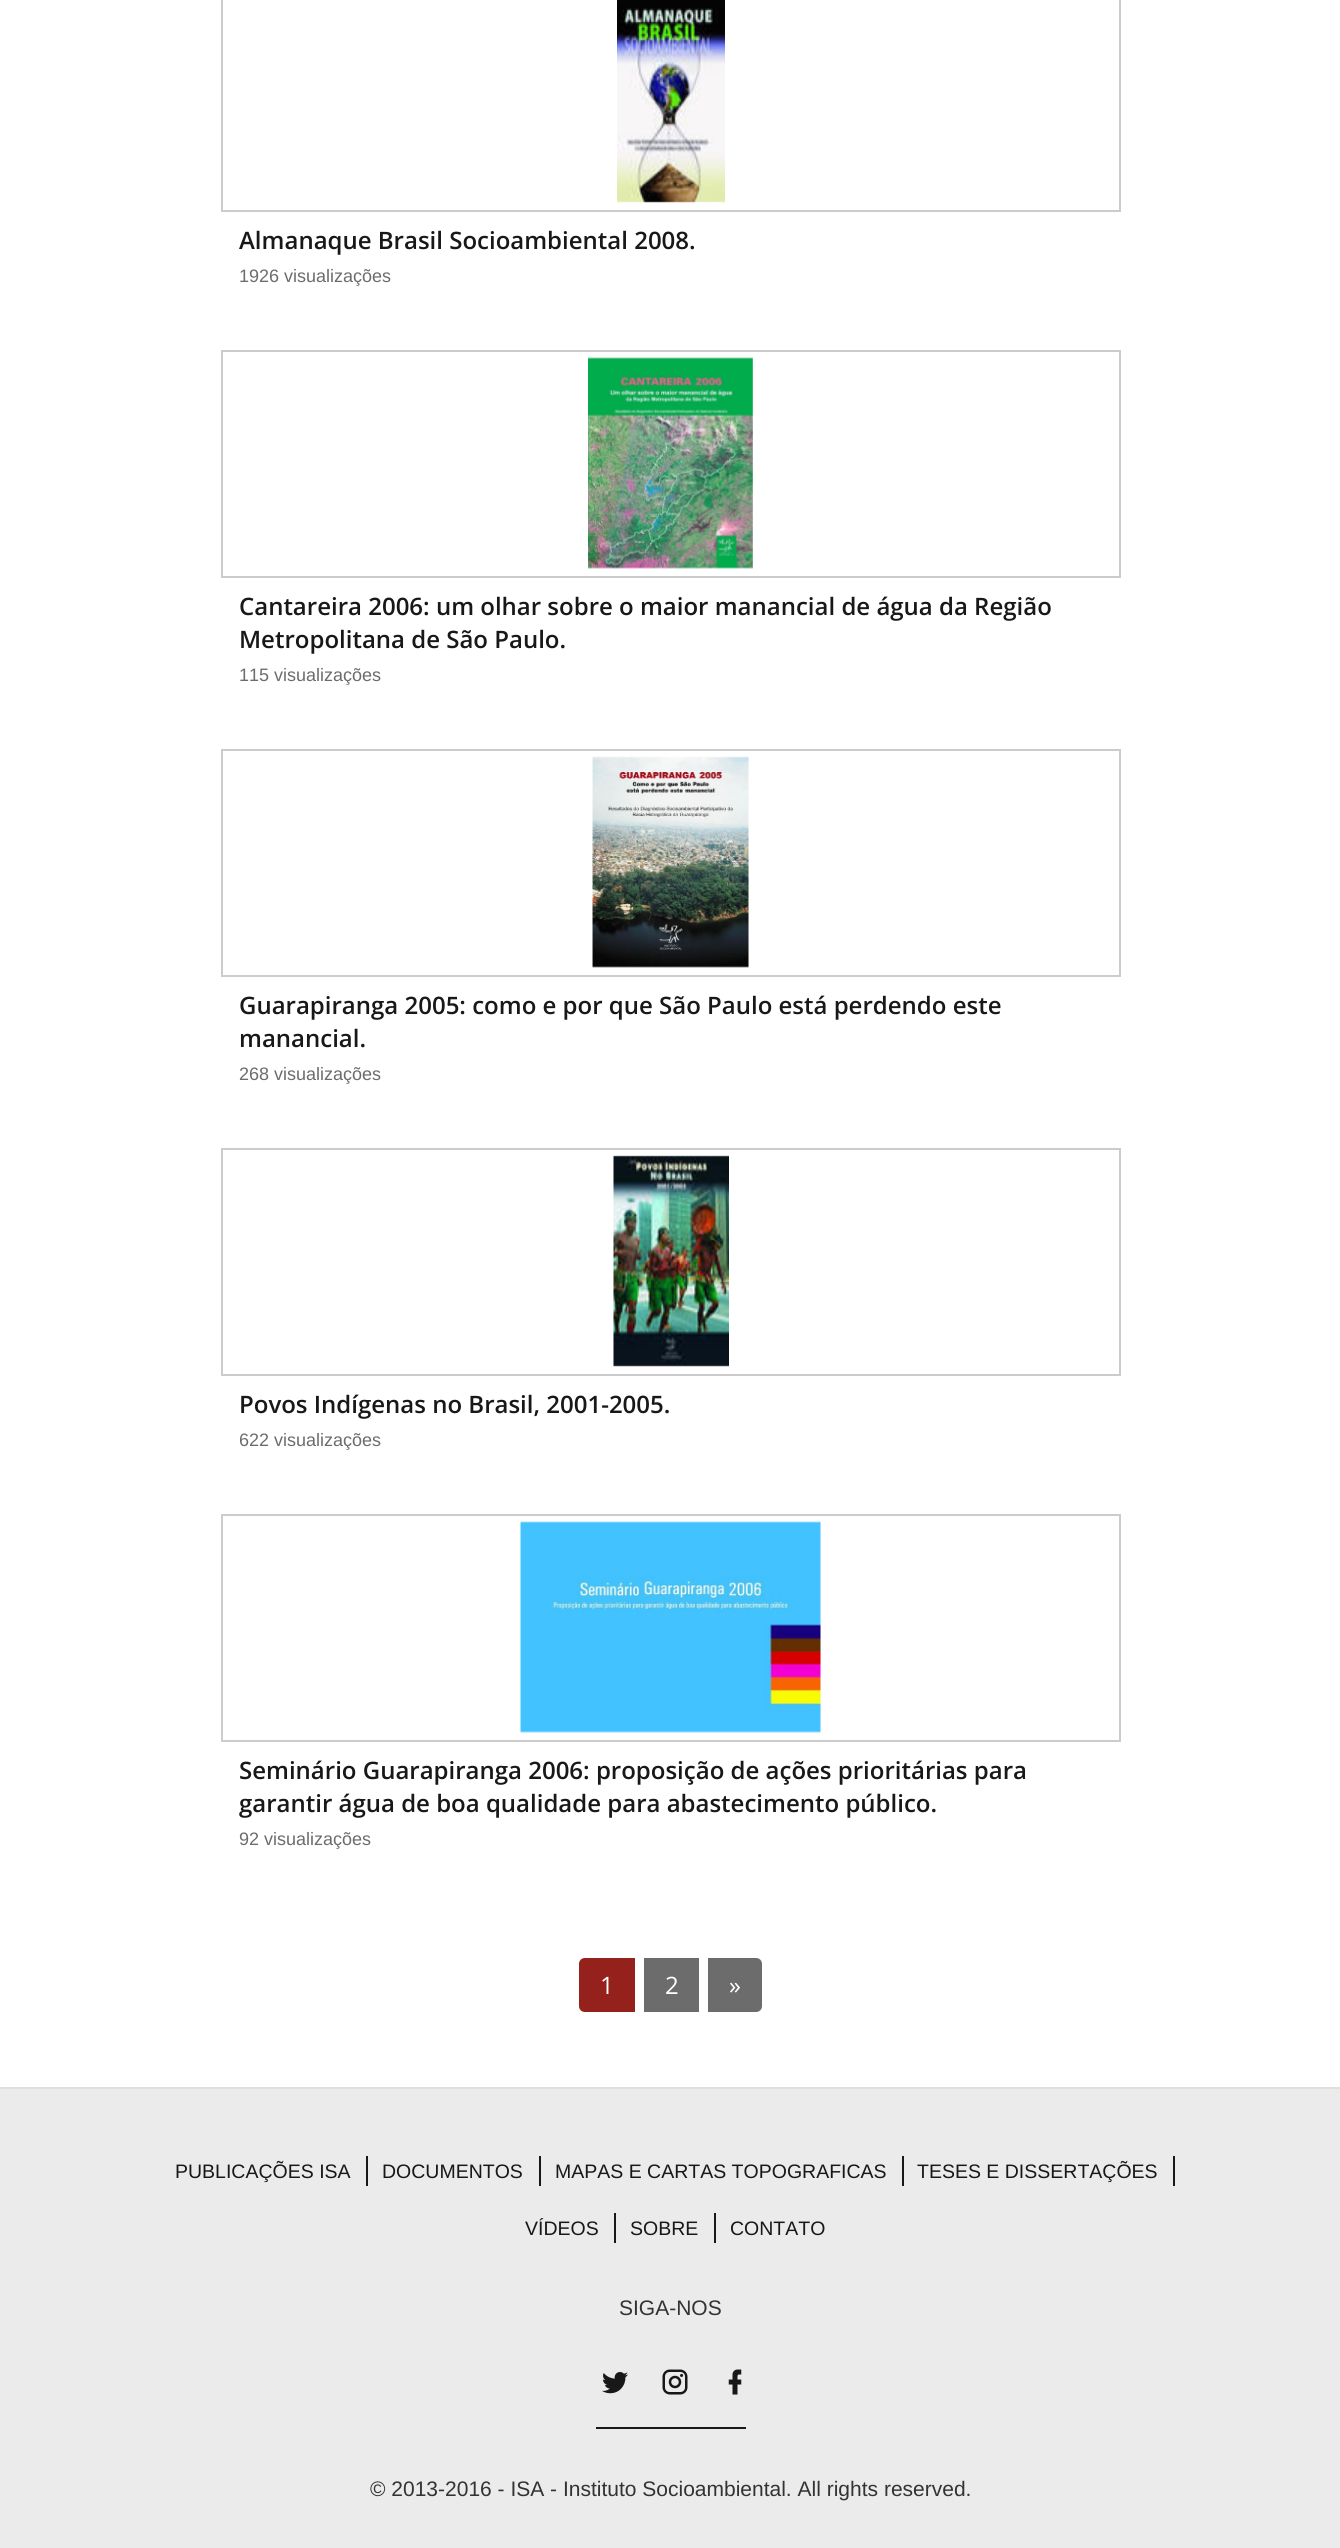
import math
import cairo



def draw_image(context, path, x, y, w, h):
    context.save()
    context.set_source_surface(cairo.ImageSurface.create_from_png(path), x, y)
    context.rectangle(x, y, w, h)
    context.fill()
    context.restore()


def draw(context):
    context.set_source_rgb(1, 1, 1)
    context.paint()
    context.rectangle(222, -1, 898, 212)
    context.set_source_rgb(204 / 255, 204 / 255, 204 / 255)
    context.stroke()
    draw_image(context, "images/1.png", 617, 0, 108, 203)
    context.rectangle(222, 351, 898, 226)
    context.stroke()
    draw_image(context, "images/2.png", 588, 357, 165, 212)
    context.rectangle(222, 750, 898, 226)
    context.stroke()
    draw_image(context, "images/3.png", 592, 756, 157, 212)
    context.rectangle(222, 1149, 898, 226)
    context.stroke()
    draw_image(context, "images/4.png", 613, 1155, 116, 212)
    context.rectangle(222, 1515, 898, 226)
    context.stroke()
    draw_image(context, "images/5.png", 520, 1521, 301, 212)
    context.set_source_rgb(149 / 255, 33 / 255, 28 / 255)
    context.new_path()
    context.move_to(585, 1958)
    context.line_to(635, 1958)
    context.line_to(635, 2012)
    context.line_to(585, 2012)
    context.curve_to(581.5, 2012, 579, 2009.5, 579, 2006)
    context.line_to(579, 1964)
    context.curve_to(579, 1960.5, 581.5, 1958, 585, 1958)
    context.close_path()
    context.fill()
    context.set_source_rgb(108 / 255, 108 / 255, 108 / 255)
    context.rectangle(644, 1958, 55, 54)
    context.fill()
    context.new_path()
    context.move_to(708, 1958)
    context.line_to(756, 1958)
    context.curve_to(759.5, 1958, 762, 1960.5, 762, 1964)
    context.line_to(762, 2006)
    context.curve_to(762, 2009.5, 759.5, 2012, 756, 2012)
    context.line_to(708, 2012)
    context.close_path()
    context.fill()
    context.set_source_rgb(235 / 255, 235 / 255, 235 / 255)
    context.rectangle(0, 2089, 1340, 459)
    context.fill()
    context.set_source_rgb(226 / 255, 222 / 255, 222 / 255)
    context.rectangle(0, 2087, 1340, 2)
    context.fill()
    context.set_source_rgb(24 / 255, 24 / 255, 24 / 255)
    context.rectangle(366, 2156, 2, 30)
    context.fill()
    context.rectangle(539, 2156, 2, 30)
    context.fill()
    context.rectangle(902, 2156, 2, 30)
    context.fill()
    context.rectangle(1173, 2156, 2, 30)
    context.fill()
    context.rectangle(614, 2213, 2, 30)
    context.fill()
    context.rectangle(714, 2213, 2, 30)
    context.fill()
    draw_image(context, "images/6.png", 602, 2372, 26, 22)
    draw_image(context, "images/7.png", 662, 2369, 26, 26)
    draw_image(context, "images/8.png", 728, 2369, 14, 26)
    context.rectangle(596, 2427, 150, 2)
    context.fill()
    context.select_font_face("Open Sans SemiBold")
    context.set_font_size(24)
    context.move_to(239, 249)
    context.show_text("Almanaque Brasil Socioambiental 2008.")
    context.select_font_face("Liberation Sans")
    context.set_font_size(18)
    context.set_source_rgb(108 / 255, 108 / 255, 108 / 255)
    context.move_to(239, 282)
    context.show_text("1926 visualizações")
    context.select_font_face("Open Sans SemiBold")
    context.set_font_size(24)
    context.set_source_rgb(24 / 255, 24 / 255, 24 / 255)
    context.move_to(239, 615)
    context.show_text("Cantareira 2006: um olhar sobre o maior manancial de água da Região")
    context.move_to(239, 648)
    context.show_text("Metropolitana de São Paulo.")
    context.select_font_face("Liberation Sans")
    context.set_font_size(18)
    context.set_source_rgb(108 / 255, 108 / 255, 108 / 255)
    context.move_to(239, 681)
    context.show_text("115 visualizações")
    context.select_font_face("Open Sans SemiBold")
    context.set_font_size(24)
    context.set_source_rgb(24 / 255, 24 / 255, 24 / 255)
    context.move_to(239, 1014)
    context.show_text("Guarapiranga 2005: como e por que São Paulo está perdendo este")
    context.move_to(239, 1047)
    context.show_text("manancial.")
    context.select_font_face("Liberation Sans")
    context.set_font_size(18)
    context.set_source_rgb(108 / 255, 108 / 255, 108 / 255)
    context.move_to(239, 1080)
    context.show_text("268 visualizações")
    context.select_font_face("Open Sans SemiBold")
    context.set_font_size(24)
    context.set_source_rgb(24 / 255, 24 / 255, 24 / 255)
    context.move_to(239, 1413)
    context.show_text("Povos Indígenas no Brasil, 2001-2005.")
    context.select_font_face("Liberation Sans")
    context.set_font_size(18)
    context.set_source_rgb(108 / 255, 108 / 255, 108 / 255)
    context.move_to(239, 1446)
    context.show_text("622 visualizações")
    context.select_font_face("Open Sans SemiBold")
    context.set_font_size(24)
    context.set_source_rgb(24 / 255, 24 / 255, 24 / 255)
    context.move_to(239, 1779)
    context.show_text("Seminário Guarapiranga 2006: proposição de ações prioritárias para")
    context.move_to(239, 1812)
    context.show_text("garantir água de boa qualidade para abastecimento público.")
    context.select_font_face("Liberation Sans")
    context.set_font_size(18)
    context.set_source_rgb(108 / 255, 108 / 255, 108 / 255)
    context.move_to(239, 1845)
    context.show_text("92 visualizações")
    context.select_font_face("Open Sans")
    context.set_font_size(24)
    context.set_source_rgb(1, 1, 1)
    context.move_to(600, 1994)
    context.show_text("1")
    context.move_to(665, 1994)
    context.show_text("2")
    context.move_to(729, 1994)
    context.show_text("»")
    context.select_font_face("Liberation Sans")
    context.set_font_size(19.5)
    context.set_source_rgb(24 / 255, 24 / 255, 24 / 255)
    context.move_to(175, 2178)
    context.show_text("PUBLICAÇÕES ISA")
    context.move_to(382, 2178)
    context.show_text("DOCUMENTOS")
    context.move_to(555, 2178)
    context.show_text("MAPAS E CARTAS TOPOGRAFICAS")
    context.move_to(917, 2178)
    context.show_text("TESES E DISSERTAÇÕES")
    context.move_to(525, 2235)
    context.show_text("VÍDEOS")
    context.move_to(630, 2235)
    context.show_text("SOBRE")
    context.move_to(730, 2235)
    context.show_text("CONTATO")
    context.set_font_size(21)
    context.set_source_rgb(51 / 255, 51 / 255, 51 / 255)
    context.move_to(619, 2315)
    context.show_text("SIGA-NOS")
    context.move_to(370, 2496)
    context.show_text("© 2013-2016 - ISA - Instituto Socioambiental. All rights reserved.")


surface = cairo.ImageSurface(cairo.Format.RGB24, 1340, 2548)
context = cairo.Context(surface)
options = cairo.FontOptions()
options.set_hint_metrics(cairo.HintMetrics.OFF)
options.set_hint_style(cairo.HintStyle.NONE)
context.set_font_options(options)
context.set_miter_limit(4)
draw(context)
surface.write_to_png("out.png")
